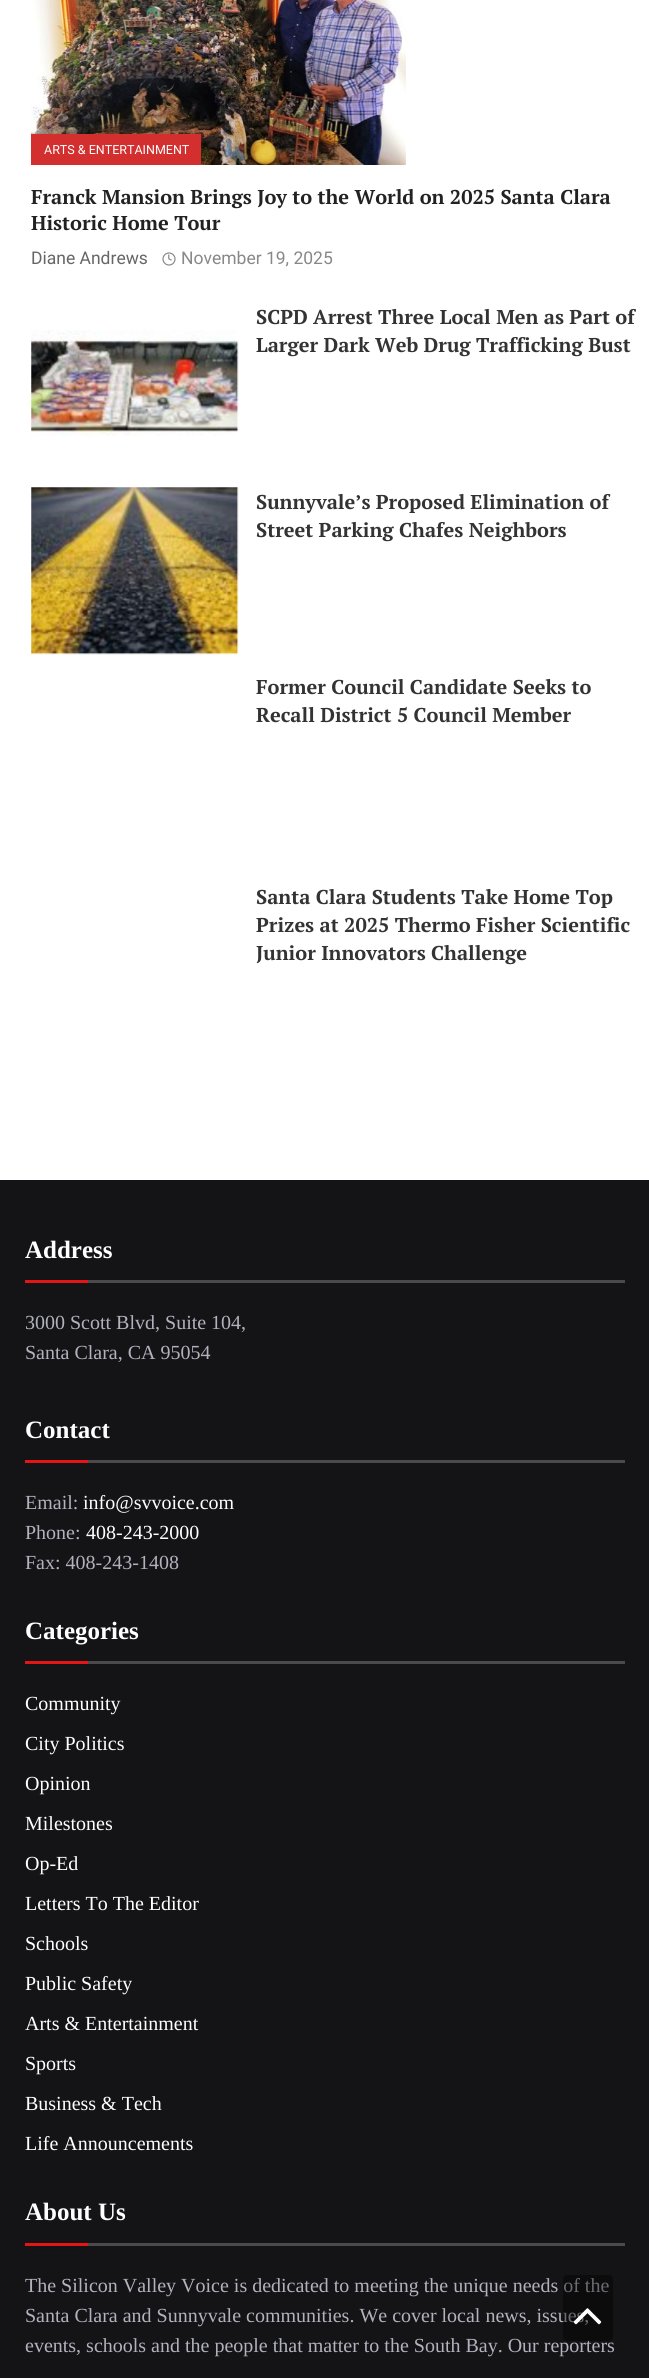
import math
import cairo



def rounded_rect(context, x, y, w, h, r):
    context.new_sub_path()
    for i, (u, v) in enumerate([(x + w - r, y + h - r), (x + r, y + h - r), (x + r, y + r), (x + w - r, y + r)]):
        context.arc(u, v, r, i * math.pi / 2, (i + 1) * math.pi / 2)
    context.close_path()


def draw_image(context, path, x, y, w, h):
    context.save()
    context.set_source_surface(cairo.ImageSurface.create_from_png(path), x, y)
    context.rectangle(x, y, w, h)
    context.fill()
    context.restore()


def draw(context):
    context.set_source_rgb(1, 1, 1)
    context.paint()
    draw_image(context, "images/1.png", 31, 0, 375, 165)
    context.set_source_rgb(211 / 255, 47 / 255, 47 / 255)
    context.rectangle(31, 134, 170, 31)
    context.fill()
    draw_image(context, "images/2.png", 162, 252, 14, 14)
    draw_image(context, "images/3.png", 31, 330, 208, 106)
    draw_image(context, "images/4.png", 31, 487, 208, 168)
    context.set_source_rgb(20 / 255, 20 / 255, 22 / 255)
    context.rectangle(0, 1180, 649, 1198)
    context.fill()
    context.set_source_rgb(74 / 255, 74 / 255, 74 / 255)
    context.rectangle(88, 1280, 537, 3)
    context.fill()
    context.set_source_rgb(229 / 255, 21 / 255, 21 / 255)
    context.rectangle(25, 1280, 63, 3)
    context.fill()
    context.set_source_rgb(74 / 255, 74 / 255, 74 / 255)
    context.rectangle(88, 1460, 537, 3)
    context.fill()
    context.set_source_rgb(229 / 255, 21 / 255, 21 / 255)
    context.rectangle(25, 1460, 63, 3)
    context.fill()
    context.set_source_rgb(74 / 255, 74 / 255, 74 / 255)
    context.rectangle(88, 1661, 537, 3)
    context.fill()
    context.set_source_rgb(229 / 255, 21 / 255, 21 / 255)
    context.rectangle(25, 1661, 63, 3)
    context.fill()
    context.set_source_rgb(74 / 255, 74 / 255, 74 / 255)
    context.rectangle(88, 2243, 537, 3)
    context.fill()
    context.set_source_rgb(229 / 255, 21 / 255, 21 / 255)
    context.rectangle(25, 2243, 63, 3)
    context.fill()
    context.select_font_face("Roboto")
    context.set_font_size(12.5)
    context.set_source_rgb(1, 1, 1)
    context.move_to(44, 154)
    context.show_text("ARTS & ENTERTAINMENT")
    context.select_font_face("PT Serif", cairo.FontSlant.NORMAL, cairo.FontWeight.BOLD)
    context.set_font_size(20)
    context.set_source_rgb(34 / 255, 34 / 255, 34 / 255)
    context.move_to(31, 204)
    context.show_text("Franck Mansion Brings Joy to the World on 2025 Santa Clara")
    context.move_to(31, 230)
    context.show_text("Historic Home Tour")
    context.select_font_face("Roboto")
    context.set_font_size(17.5)
    context.set_source_rgb(102 / 255, 102 / 255, 102 / 255)
    context.move_to(31, 264)
    context.show_text("Diane Andrews")
    context.set_source_rgb(136 / 255, 136 / 255, 136 / 255)
    context.move_to(181, 264)
    context.show_text("November 19, 2025")
    context.select_font_face("PT Serif", cairo.FontSlant.NORMAL, cairo.FontWeight.BOLD)
    context.set_font_size(20)
    context.set_source_rgb(51 / 255, 51 / 255, 51 / 255)
    context.move_to(256, 324)
    context.show_text("SCPD Arrest Three Local Men as Part of")
    context.move_to(256, 352)
    context.show_text("Larger Dark Web Drug Trafficking Bust")
    context.move_to(256, 509)
    context.show_text("Sunnyvale’s Proposed Elimination of")
    context.move_to(256, 537)
    context.show_text("Street Parking Chafes Neighbors")
    context.move_to(256, 694)
    context.show_text("Former Council Candidate Seeks to")
    context.move_to(256, 722)
    context.show_text("Recall District 5 Council Member")
    context.move_to(256, 904)
    context.show_text("Santa Clara Students Take Home Top")
    context.move_to(256, 932)
    context.show_text("Prizes at 2025 Thermo Fisher Scientific")
    context.move_to(256, 960)
    context.show_text("Junior Innovators Challenge")
    context.select_font_face("Liberation Serif", cairo.FontSlant.NORMAL, cairo.FontWeight.BOLD)
    context.set_font_size(25)
    context.set_source_rgb(1, 1, 1)
    context.move_to(25, 1258)
    context.show_text("Address")
    context.select_font_face("Liberation Serif")
    context.set_font_size(20)
    context.set_source_rgb(178 / 255, 178 / 255, 190 / 255)
    context.move_to(25, 1329)
    context.show_text("3000 Scott Blvd, Suite 104,")
    context.move_to(25, 1359)
    context.show_text("Santa Clara, CA 95054")
    context.select_font_face("Liberation Serif", cairo.FontSlant.NORMAL, cairo.FontWeight.BOLD)
    context.set_font_size(25)
    context.set_source_rgb(1, 1, 1)
    context.move_to(25, 1438)
    context.show_text("Contact")
    context.select_font_face("Liberation Serif")
    context.set_font_size(20)
    context.set_source_rgb(178 / 255, 178 / 255, 190 / 255)
    context.move_to(25, 1509)
    context.show_text("Email:")
    context.set_source_rgb(1, 1, 1)
    context.move_to(83, 1509)
    context.show_text("info@svvoice.com")
    context.set_source_rgb(178 / 255, 178 / 255, 190 / 255)
    context.move_to(25, 1539)
    context.show_text("Phone:")
    context.set_source_rgb(1, 1, 1)
    context.move_to(86, 1539)
    context.show_text("408-243-2000")
    context.set_source_rgb(178 / 255, 178 / 255, 190 / 255)
    context.move_to(25, 1569)
    context.show_text("Fax: 408-243-1408")
    context.select_font_face("Liberation Serif", cairo.FontSlant.NORMAL, cairo.FontWeight.BOLD)
    context.set_font_size(25)
    context.set_source_rgb(1, 1, 1)
    context.move_to(25, 1639)
    context.show_text("Categories")
    context.select_font_face("Liberation Serif")
    context.set_font_size(20)
    context.move_to(25, 1710)
    context.show_text("Community")
    context.move_to(25, 1750)
    context.show_text("City Politics")
    context.move_to(25, 1790)
    context.show_text("Opinion")
    context.move_to(25, 1830)
    context.show_text("Milestones")
    context.move_to(25, 1870)
    context.show_text("Op-Ed")
    context.move_to(25, 1910)
    context.show_text("Letters To The Editor")
    context.move_to(25, 1950)
    context.show_text("Schools")
    context.move_to(25, 1990)
    context.show_text("Public Safety")
    context.move_to(25, 2030)
    context.show_text("Arts & Entertainment")
    context.move_to(25, 2070)
    context.show_text("Sports")
    context.move_to(25, 2110)
    context.show_text("Business & Tech")
    context.move_to(25, 2150)
    context.show_text("Life Announcements")
    context.select_font_face("Liberation Serif", cairo.FontSlant.NORMAL, cairo.FontWeight.BOLD)
    context.set_font_size(25)
    context.move_to(25, 2220)
    context.show_text("About Us")
    context.select_font_face("Liberation Serif")
    context.set_font_size(20)
    context.set_source_rgb(178 / 255, 178 / 255, 190 / 255)
    context.move_to(25, 2292)
    context.show_text("The Silicon Valley Voice is dedicated to meeting the unique needs of the")
    context.move_to(25, 2322)
    context.show_text("Santa Clara and Sunnyvale communities. We cover local news, issues,")
    context.move_to(25, 2352)
    context.show_text("events, schools and the people that matter to the South Bay. Our reporters")
    context.set_source_rgba(0, 0, 0, 0.4)
    rounded_rect(context, 563, 2275, 50, 66, 4)
    context.fill()
    draw_image(context, "images/5.png", 573, 2308, 29, 17)


surface = cairo.ImageSurface(cairo.Format.RGB24, 649, 2378)
context = cairo.Context(surface)
options = cairo.FontOptions()
options.set_hint_metrics(cairo.HintMetrics.OFF)
options.set_hint_style(cairo.HintStyle.NONE)
context.set_font_options(options)
context.set_miter_limit(4)
draw(context)
surface.write_to_png("out.png")
